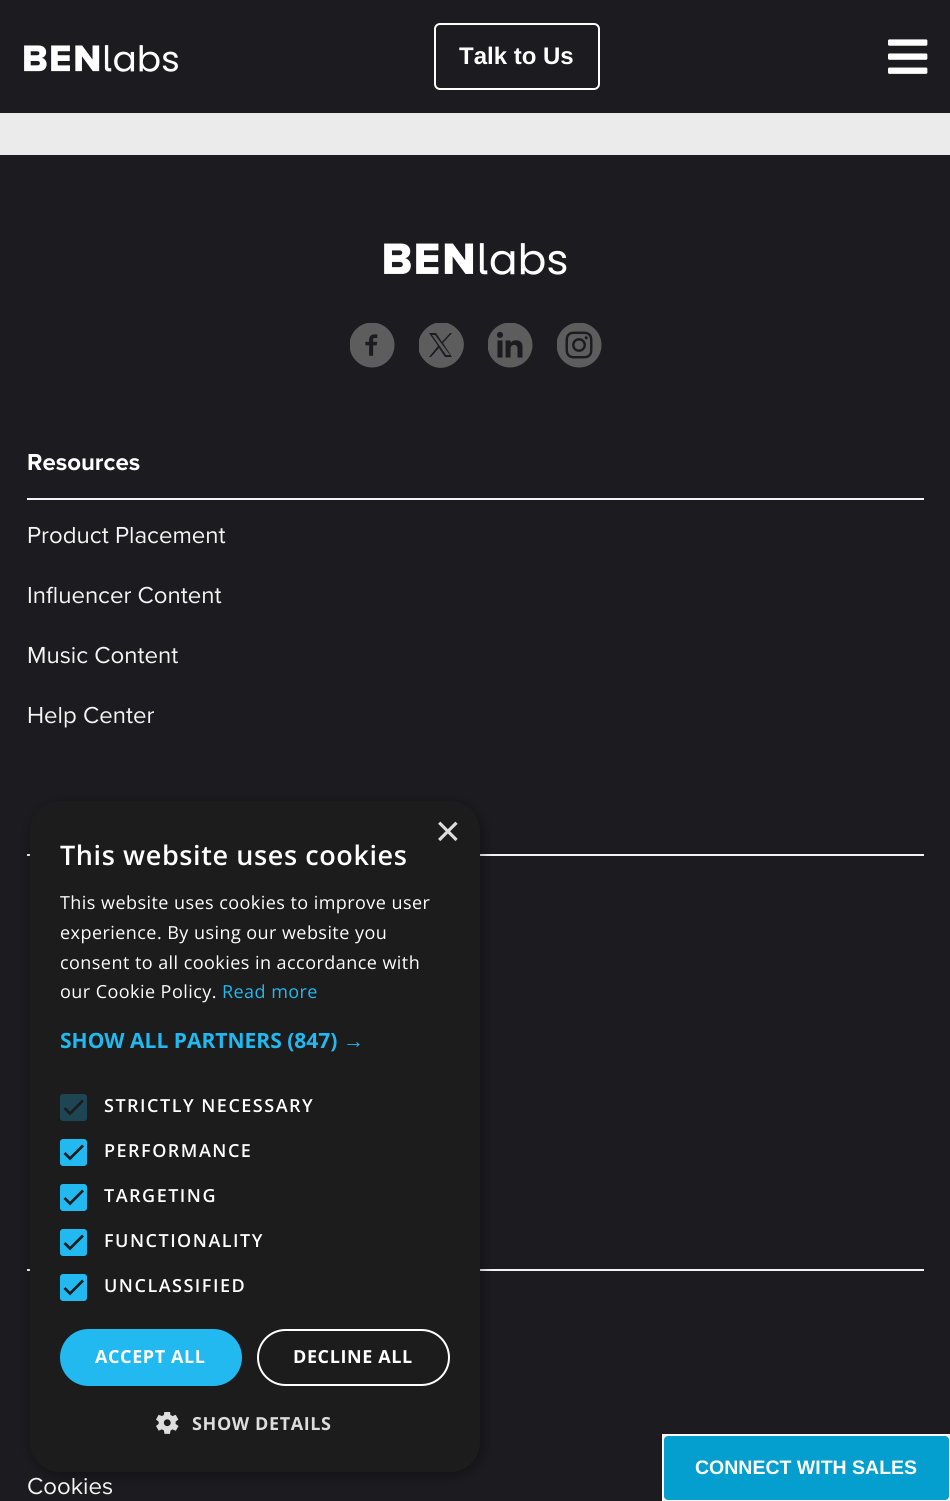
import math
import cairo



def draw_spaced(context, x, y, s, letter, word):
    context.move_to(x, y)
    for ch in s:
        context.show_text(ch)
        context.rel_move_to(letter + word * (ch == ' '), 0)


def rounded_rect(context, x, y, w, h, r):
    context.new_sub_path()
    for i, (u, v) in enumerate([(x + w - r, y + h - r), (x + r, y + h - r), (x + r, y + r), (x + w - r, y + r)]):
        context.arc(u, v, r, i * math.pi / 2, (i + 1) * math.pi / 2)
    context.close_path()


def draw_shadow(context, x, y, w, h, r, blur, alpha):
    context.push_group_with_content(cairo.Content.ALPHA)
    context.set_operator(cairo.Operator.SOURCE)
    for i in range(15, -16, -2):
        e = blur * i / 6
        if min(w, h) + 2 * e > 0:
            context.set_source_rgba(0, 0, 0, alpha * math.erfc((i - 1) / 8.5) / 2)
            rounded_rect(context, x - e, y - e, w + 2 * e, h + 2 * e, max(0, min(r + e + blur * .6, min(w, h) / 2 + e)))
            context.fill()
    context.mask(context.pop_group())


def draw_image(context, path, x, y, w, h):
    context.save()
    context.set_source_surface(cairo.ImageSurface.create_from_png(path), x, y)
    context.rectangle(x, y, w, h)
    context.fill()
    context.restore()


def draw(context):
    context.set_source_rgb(235 / 255, 235 / 255, 235 / 255)
    context.paint()
    context.set_source_rgb(27 / 255, 27 / 255, 32 / 255)
    context.rectangle(0, 0, 950, 113)
    context.fill()
    draw_image(context, "images/1.png", 24, 45, 154, 27)
    rounded_rect(context, 435, 24, 164, 65, 5)
    context.set_source_rgb(1, 1, 1)
    context.stroke()
    draw_image(context, "images/2.png", 888, 39, 40, 35)
    context.set_source_rgb(27 / 255, 27 / 255, 32 / 255)
    context.rectangle(0, 155, 950, 1346)
    context.fill()
    draw_image(context, "images/3.png", 384, 243, 183, 32)
    draw_image(context, "images/4.png", 350, 323, 45, 45)
    context.save()
    context.rectangle(419, 323, 45, 45)
    context.clip()
    context.set_source_rgb(93 / 255, 93 / 255, 93 / 255)
    context.set_fill_rule(cairo.FillRule.EVEN_ODD)
    context.new_path()
    context.move_to(457, 329)
    context.curve_to(478, 350, 446, 382, 425, 361)
    context.curve_to(404, 340, 436, 308, 457, 329)
    context.close_path()
    context.move_to(452, 333)
    context.line_to(443, 343)
    context.line_to(452, 357)
    context.line_to(445, 357)
    context.line_to(439, 348)
    context.line_to(431, 357)
    context.line_to(429, 357)
    context.line_to(438, 346)
    context.line_to(429, 333)
    context.line_to(436, 333)
    context.line_to(442, 342)
    context.line_to(450, 333)
    context.close_path()
    context.move_to(439, 345)
    context.line_to(446, 355)
    context.line_to(450, 355)
    context.line_to(435, 335)
    context.line_to(432, 335)
    context.close_path()
    context.fill()
    context.restore()
    draw_image(context, "images/5.png", 488, 323, 45, 45)
    draw_image(context, "images/6.png", 557, 323, 45, 45)
    context.set_source_rgb(244 / 255, 244 / 255, 244 / 255)
    context.rectangle(27, 498, 897, 2)
    context.fill()
    context.rectangle(27, 854, 897, 2)
    context.fill()
    context.rectangle(27, 1269, 897, 2)
    context.fill()
    context.set_source_rgb(0, 0, 0)
    draw_shadow(context, 32, 804, 450, 671, 30, 6, 0.35)
    context.set_source_rgb(28 / 255, 28 / 255, 28 / 255)
    rounded_rect(context, 30, 801, 450, 671, 30)
    context.fill()
    context.set_source_rgb(30 / 255, 69 / 255, 83 / 255)
    rounded_rect(context, 60, 1094, 27, 27, 3)
    context.fill()
    context.new_path()
    context.move_to(64.5, 1108)
    context.line_to(70, 1113.5)
    context.line_to(83, 1100.5)
    context.set_source_rgb(28 / 255, 28 / 255, 28 / 255)
    context.set_line_width(2.7)
    context.stroke()
    context.set_source_rgb(34 / 255, 184 / 255, 240 / 255)
    rounded_rect(context, 61.5, 1140.5, 24, 24, 1.5)
    context.fill_preserve()
    context.set_line_width(3)
    context.stroke()
    context.new_path()
    context.move_to(64.5, 1153)
    context.line_to(70, 1158.5)
    context.line_to(83, 1145.5)
    context.set_source_rgb(28 / 255, 28 / 255, 28 / 255)
    context.set_line_width(2.7)
    context.stroke()
    context.set_source_rgb(34 / 255, 184 / 255, 240 / 255)
    rounded_rect(context, 61.5, 1185.5, 24, 24, 1.5)
    context.fill_preserve()
    context.set_line_width(3)
    context.stroke()
    context.new_path()
    context.move_to(64.5, 1198)
    context.line_to(70, 1203.5)
    context.line_to(83, 1190.5)
    context.set_source_rgb(28 / 255, 28 / 255, 28 / 255)
    context.set_line_width(2.7)
    context.stroke()
    context.set_source_rgb(34 / 255, 184 / 255, 240 / 255)
    rounded_rect(context, 61.5, 1230.5, 24, 24, 1.5)
    context.fill_preserve()
    context.set_line_width(3)
    context.stroke()
    context.new_path()
    context.move_to(64.5, 1243)
    context.line_to(70, 1248.5)
    context.line_to(83, 1235.5)
    context.set_source_rgb(28 / 255, 28 / 255, 28 / 255)
    context.set_line_width(2.7)
    context.stroke()
    context.set_source_rgb(34 / 255, 184 / 255, 240 / 255)
    rounded_rect(context, 61.5, 1275.5, 24, 24, 1.5)
    context.fill_preserve()
    context.set_line_width(3)
    context.stroke()
    context.new_path()
    context.move_to(64.5, 1288)
    context.line_to(70, 1293.5)
    context.line_to(83, 1280.5)
    context.set_source_rgb(28 / 255, 28 / 255, 28 / 255)
    context.set_line_width(2.7)
    context.stroke()
    context.set_source_rgb(34 / 255, 184 / 255, 240 / 255)
    rounded_rect(context, 60, 1329, 182, 57, 28.5)
    context.fill()
    rounded_rect(context, 258, 1330, 191, 55, 27.5)
    context.set_source_rgb(1, 1, 1)
    context.set_line_width(2)
    context.stroke()
    draw_image(context, "images/7.png", 156, 1412, 23, 22)
    context.rectangle(662, 1434, 288, 67)
    context.fill()
    context.set_source_rgb(4 / 255, 159 / 255, 207 / 255)
    rounded_rect(context, 663, 1435, 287, 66, 5)
    context.fill_preserve()
    context.set_source_rgb(1, 1, 1)
    context.stroke()
    context.select_font_face("Liberation Sans", cairo.FontSlant.NORMAL, cairo.FontWeight.BOLD)
    context.set_font_size(24)
    context.move_to(459, 64)
    context.show_text("Talk to Us")
    context.select_font_face("Proxima Nova", cairo.FontSlant.NORMAL, cairo.FontWeight.BOLD)
    context.move_to(27, 470)
    context.show_text("Resources")
    context.select_font_face("Proxima Nova")
    context.set_source_rgb(244 / 255, 244 / 255, 244 / 255)
    context.move_to(27, 543)
    context.show_text("Product Placement")
    context.move_to(27, 603)
    context.show_text("Influencer Content")
    context.move_to(27, 663)
    context.show_text("Music Content")
    context.move_to(27, 723)
    context.show_text("Help Center")
    context.move_to(27, 1494)
    context.show_text("Cookies")
    context.select_font_face("Liberation Sans")
    context.set_font_size(44)
    context.set_source_rgb(221 / 255, 221 / 255, 221 / 255)
    context.move_to(435, 846)
    context.show_text("×")
    context.select_font_face("Open Sans SemiBold")
    context.set_font_size(27)
    context.set_source_rgb(1, 1, 1)
    draw_spaced(context, 60, 865, "This website uses cookies", 0.6, 0)
    context.select_font_face("Open Sans")
    context.set_font_size(18)
    draw_spaced(context, 60, 909, "This website uses cookies to improve user", 0.45, 0)
    draw_spaced(context, 60, 939, "experience. By using our website you", 0.45, 0)
    draw_spaced(context, 60, 969, "consent to all cookies in accordance with", 0.45, 0)
    draw_spaced(context, 60, 998, "our Cookie Policy.", 0.45, 0)
    context.set_source_rgb(34 / 255, 184 / 255, 240 / 255)
    draw_spaced(context, 222, 998, "Read more", 0.45, 0)
    context.select_font_face("Open Sans", cairo.FontSlant.NORMAL, cairo.FontWeight.BOLD)
    context.set_font_size(21)
    context.move_to(60, 1048)
    context.show_text("SHOW ALL PARTNERS (847)")
    context.select_font_face("Liberation Sans", cairo.FontSlant.NORMAL, cairo.FontWeight.BOLD)
    context.move_to(343, 1048)
    context.show_text("→")
    context.select_font_face("Open Sans SemiBold")
    context.set_font_size(18)
    context.set_source_rgb(1, 1, 1)
    draw_spaced(context, 104, 1112, "STRICTLY NECESSARY", 1.5, 0)
    draw_spaced(context, 104, 1157, "PERFORMANCE", 1.5, 0)
    draw_spaced(context, 104, 1202, "TARGETING", 1.5, 0)
    draw_spaced(context, 104, 1247, "FUNCTIONALITY", 1.5, 0)
    draw_spaced(context, 104, 1292, "UNCLASSIFIED", 1.5, 0)
    context.select_font_face("Open Sans", cairo.FontSlant.NORMAL, cairo.FontWeight.BOLD)
    draw_spaced(context, 95, 1363, "ACCEPT ALL", 0.6, 0)
    draw_spaced(context, 293, 1363, "DECLINE ALL", 0.6, 0)
    context.set_source_rgb(221 / 255, 221 / 255, 221 / 255)
    draw_spaced(context, 192, 1430, "SHOW DETAILS", 0.6, 0)
    context.select_font_face("Liberation Sans", cairo.FontSlant.NORMAL, cairo.FontWeight.BOLD)
    context.set_font_size(19.5)
    context.set_source_rgb(1, 1, 1)
    context.move_to(695, 1474)
    context.show_text("CONNECT WITH SALES")


surface = cairo.ImageSurface(cairo.Format.RGB24, 950, 1501)
context = cairo.Context(surface)
options = cairo.FontOptions()
options.set_hint_metrics(cairo.HintMetrics.OFF)
options.set_hint_style(cairo.HintStyle.NONE)
context.set_font_options(options)
context.set_miter_limit(4)
draw(context)
surface.write_to_png("out.png")
